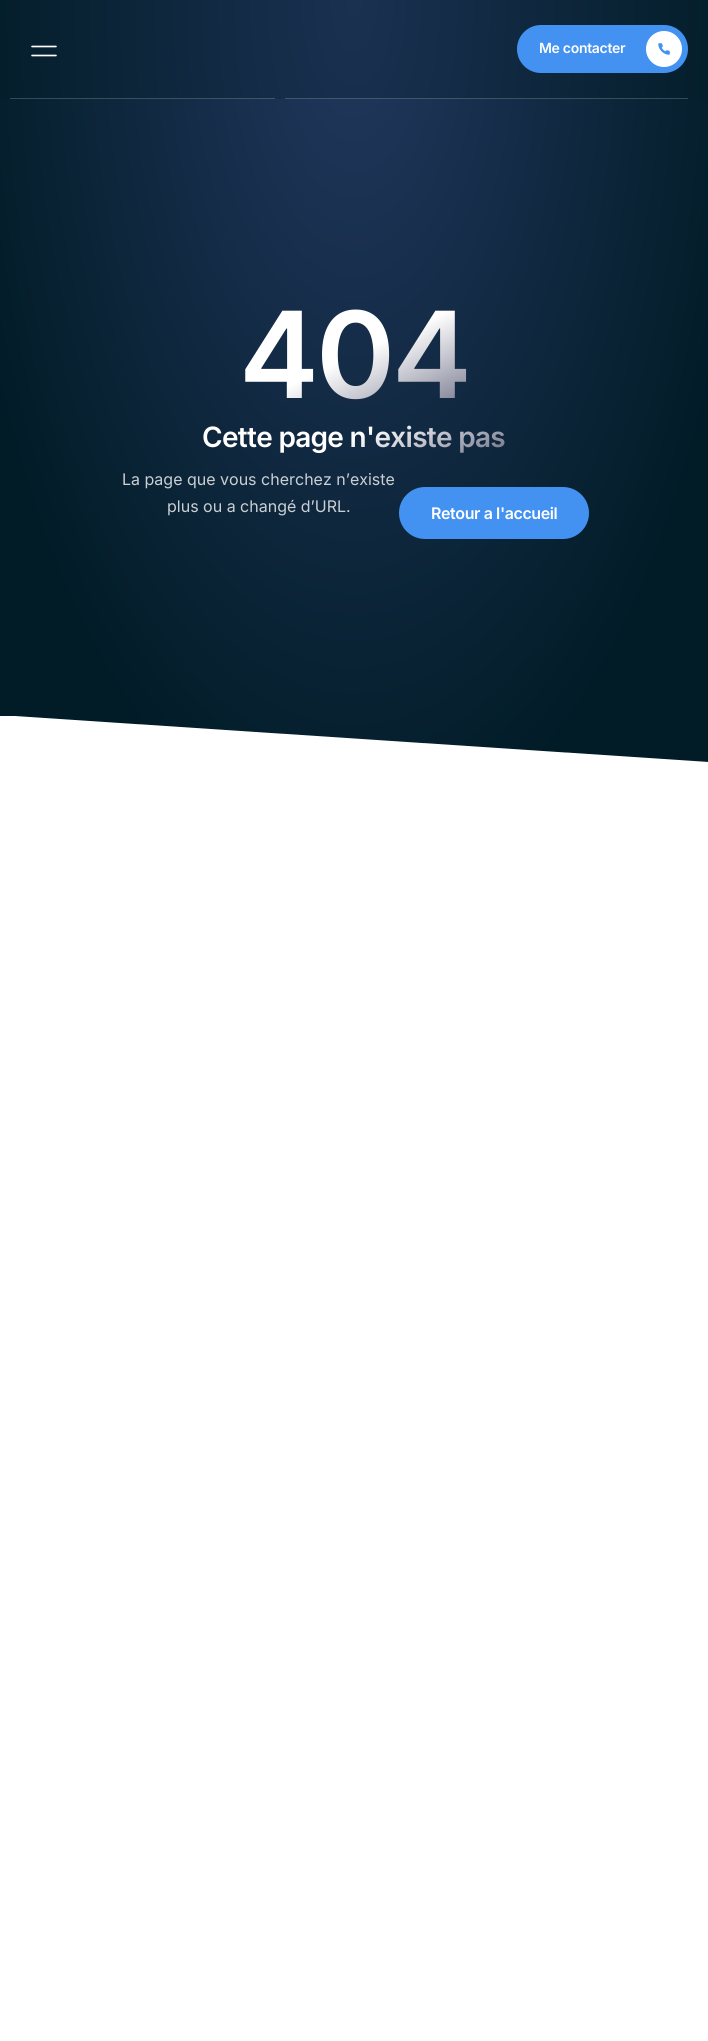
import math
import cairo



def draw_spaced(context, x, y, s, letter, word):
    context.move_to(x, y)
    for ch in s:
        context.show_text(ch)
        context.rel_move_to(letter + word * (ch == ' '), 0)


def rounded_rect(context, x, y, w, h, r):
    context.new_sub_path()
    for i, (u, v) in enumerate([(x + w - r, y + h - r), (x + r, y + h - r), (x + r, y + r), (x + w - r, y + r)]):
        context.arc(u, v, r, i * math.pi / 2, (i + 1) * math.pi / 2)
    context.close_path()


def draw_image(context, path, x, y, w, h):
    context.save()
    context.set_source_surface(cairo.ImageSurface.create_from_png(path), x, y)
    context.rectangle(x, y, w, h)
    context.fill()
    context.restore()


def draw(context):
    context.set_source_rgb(1, 1, 1)
    context.paint()
    gradient = cairo.RadialGradient(0, 0, 0, 0, 0, 1)
    gradient.set_matrix(cairo.Matrix(1 / 501, 0, 0, 1 / 1082, -1 * 354 / 501, -1 * 0 / 1082))
    gradient.add_color_stop_rgba(0, 26 / 255, 49 / 255, 81 / 255, 1)
    gradient.add_color_stop_rgba(0.8, 1 / 255, 28 / 255, 39 / 255, 1)
    context.set_source(gradient)
    context.rectangle(0, 0, 708, 99)
    context.fill()
    context.new_path()
    context.move_to(32, 46.5)
    context.line_to(56, 46.5)
    context.move_to(32, 55.5)
    context.line_to(56, 55.5)
    context.set_source_rgb(1, 1, 1)
    context.set_line_width(1.6)
    context.set_line_cap(cairo.LineCap.ROUND)
    context.set_line_join(cairo.LineJoin.ROUND)
    context.stroke()
    context.set_source_rgb(67 / 255, 146 / 255, 241 / 255)
    rounded_rect(context, 517, 25, 171, 48, 24)
    context.fill()
    context.set_source_rgb(1, 1, 1)
    context.arc(664, 49, 18, 0, 2 * math.pi)
    context.fill()
    draw_image(context, "images/1.png", 658, 43, 12, 12)
    gradient = cairo.RadialGradient(0, 0, 0, 0, 0, 1)
    gradient.set_matrix(cairo.Matrix(1 / 501, 0, 0, 1 / 1082, -1 * 354 / 501, -1 * 0 / 1082))
    gradient.add_color_stop_rgba(0, 34 / 255, 56 / 255, 95 / 255, 1)
    gradient.add_color_stop_rgba(0.8, 1 / 255, 28 / 255, 39 / 255, 1)
    context.set_source(gradient)
    context.rectangle(0, 99, 708, 663)
    context.fill()
    gradient = cairo.RadialGradient(0, 0, 0, 0, 0, 1)
    gradient.set_matrix(cairo.Matrix(1 / 501, 0, 0, 1 / 1082, -1 * 354 / 501, -1 * 0 / 1082))
    gradient.add_color_stop_rgba(0, 70 / 255, 88 / 255, 114 / 255, 1)
    gradient.add_color_stop_rgba(0.8, 49 / 255, 71 / 255, 80 / 255, 1)
    context.set_source(gradient)
    context.rectangle(285, 98, 403, 1)
    context.fill()
    context.rectangle(10, 98, 265, 1)
    context.fill()
    context.set_source_rgb(67 / 255, 146 / 255, 241 / 255)
    rounded_rect(context, 399, 487, 190, 52, 26)
    context.fill()
    context.save()
    context.rectangle(0, 716, 708, 50)
    context.clip()
    context.set_source_rgb(1, 1, 1)
    context.new_path()
    context.move_to(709, 762)
    context.line_to(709, 765)
    context.line_to(-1, 765)
    context.line_to(-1, 715)
    context.close_path()
    context.fill()
    context.restore()
    context.select_font_face("Inter SemiBold")
    context.set_font_size(14)
    context.set_source_rgb(1, 1, 1)
    draw_spaced(context, 539, 53, "Me contacter", -0.3, 0)
    context.set_font_size(120)
    gradient = cairo.LinearGradient(310, 262, 398, 448)
    gradient.add_color_stop_rgba(0.5, 1, 1, 1, 1)
    gradient.add_color_stop_rgba(1, 109 / 255, 111 / 255, 134 / 255, 1)
    context.set_source(gradient)
    draw_spaced(context, 239, 398, "404", -3, 0)
    context.set_font_size(28)
    gradient = cairo.LinearGradient(320, 365, 388, 511)
    gradient.add_color_stop_rgba(0.5, 1, 1, 1, 1)
    gradient.add_color_stop_rgba(1, 109 / 255, 111 / 255, 134 / 255, 1)
    context.set_source(gradient)
    draw_spaced(context, 202, 447, "Cette page n'existe pas", -0.7, 0)
    context.select_font_face("Inter")
    context.set_font_size(16)
    context.set_source_rgb(202 / 255, 207 / 255, 212 / 255)
    context.move_to(122, 485)
    context.show_text("La page que vous cherchez n’existe")
    context.move_to(167, 512)
    context.show_text("plus ou a changé d’URL.")
    context.select_font_face("Inter SemiBold")
    context.set_source_rgb(1, 1, 1)
    draw_spaced(context, 431, 519, "Retour a l'accueil", -0.4, 0)


surface = cairo.ImageSurface(cairo.Format.RGB24, 708, 2041)
context = cairo.Context(surface)
options = cairo.FontOptions()
options.set_hint_metrics(cairo.HintMetrics.OFF)
options.set_hint_style(cairo.HintStyle.NONE)
context.set_font_options(options)
context.set_miter_limit(4)
draw(context)
surface.write_to_png("out.png")
